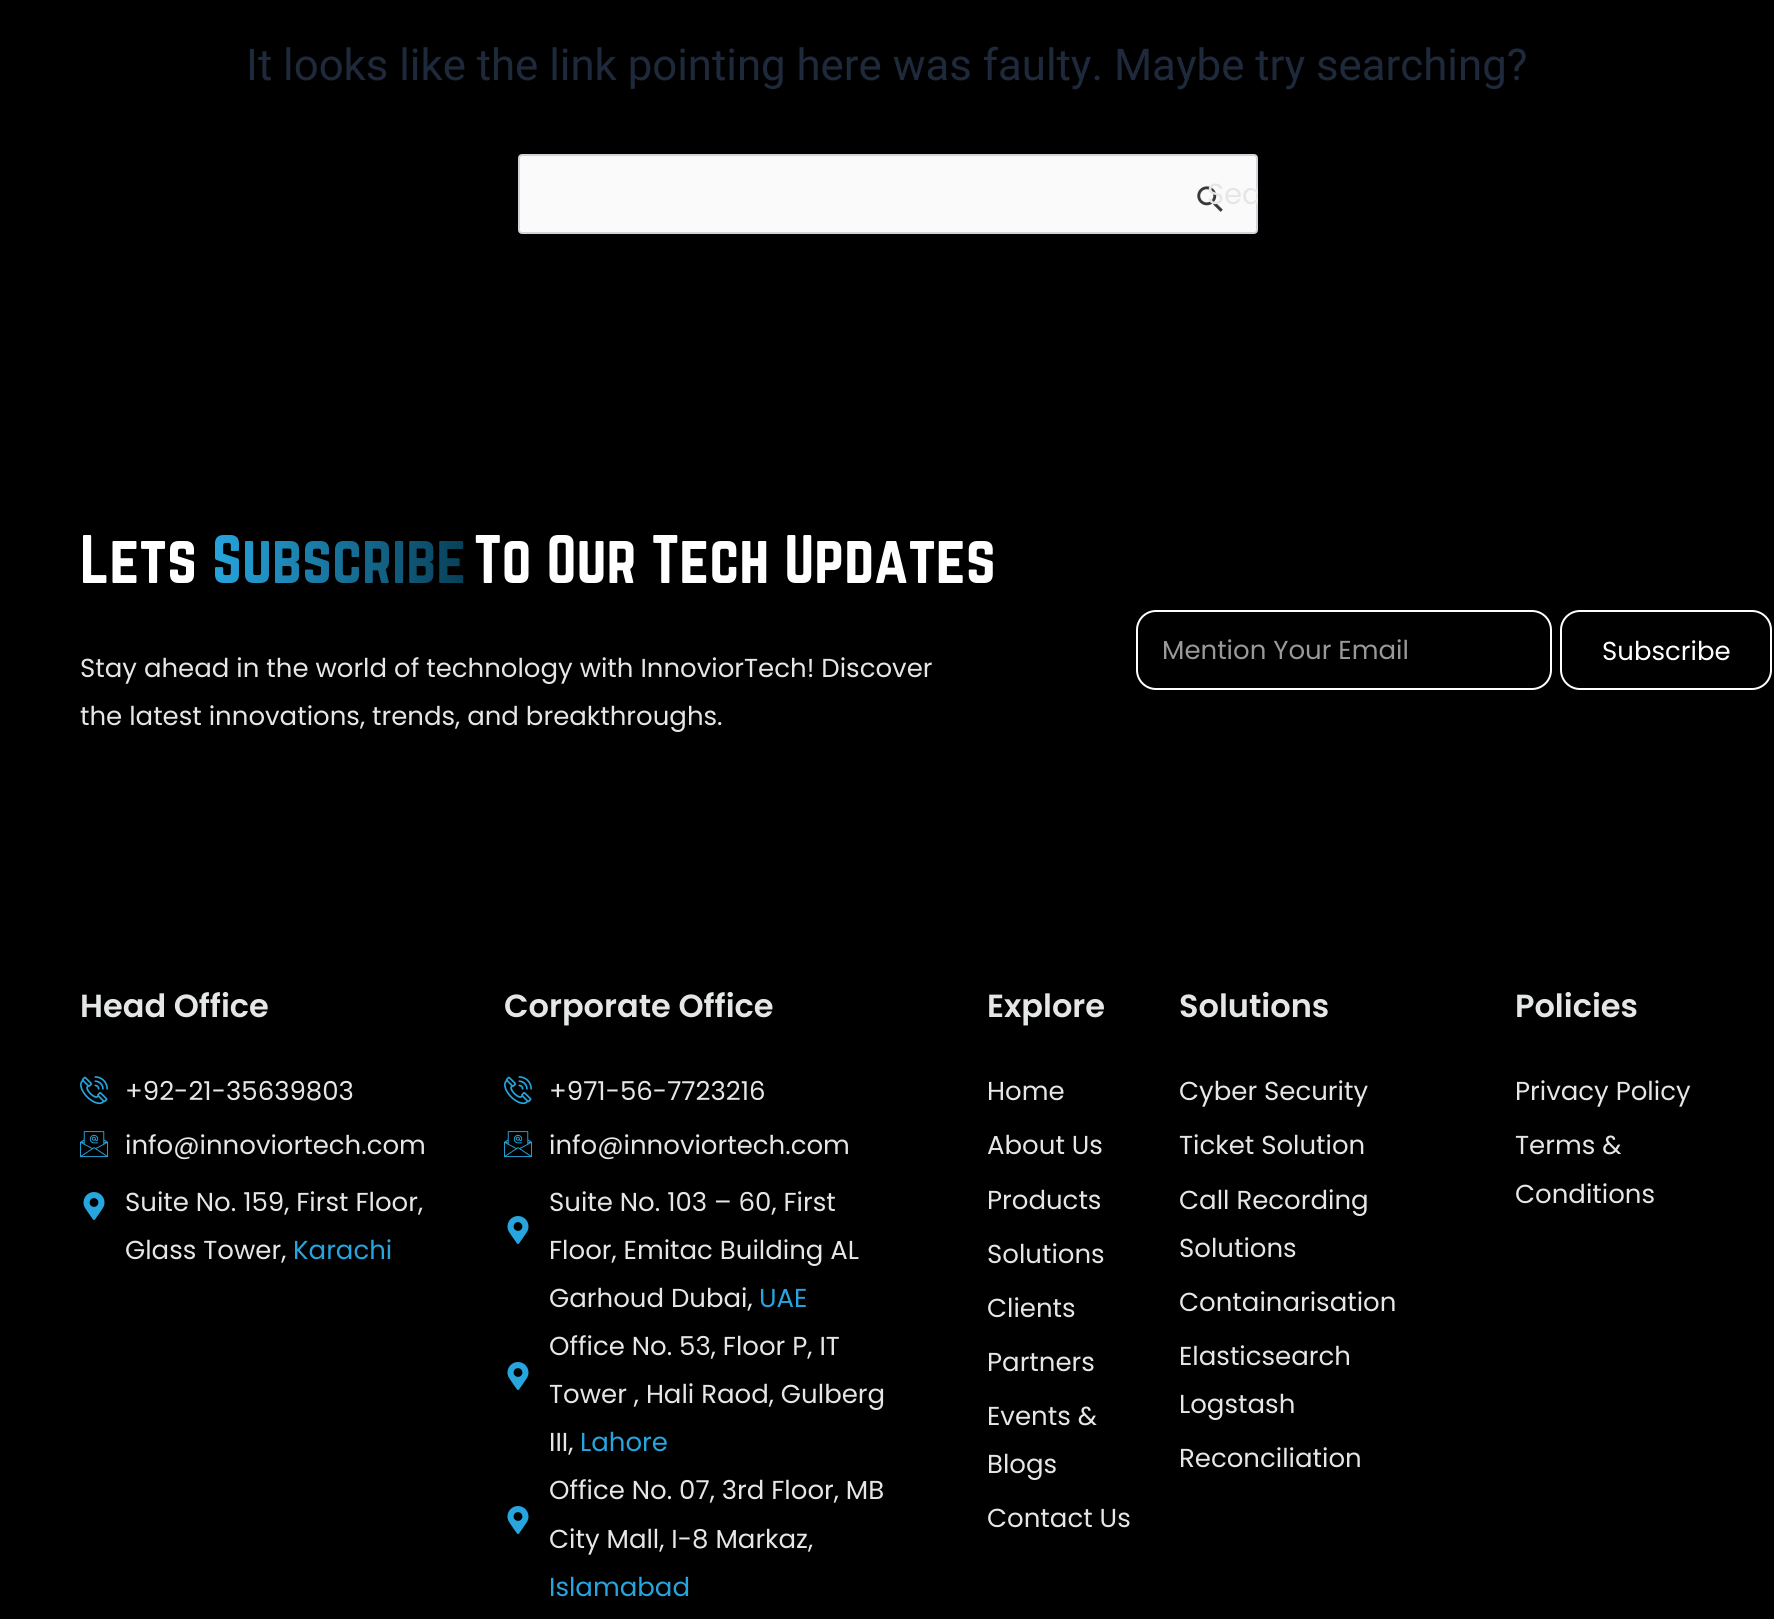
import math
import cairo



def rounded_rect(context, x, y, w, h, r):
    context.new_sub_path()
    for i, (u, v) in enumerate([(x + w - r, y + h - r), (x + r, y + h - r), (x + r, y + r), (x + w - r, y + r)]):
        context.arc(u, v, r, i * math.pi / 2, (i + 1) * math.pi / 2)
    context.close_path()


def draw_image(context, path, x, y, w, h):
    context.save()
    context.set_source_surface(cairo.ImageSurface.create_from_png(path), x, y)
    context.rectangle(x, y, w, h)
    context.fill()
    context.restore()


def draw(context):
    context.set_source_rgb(0, 0, 0)
    context.paint()
    context.set_source_rgb(250 / 255, 250 / 255, 250 / 255)
    rounded_rect(context, 519, 155, 738, 78, 3)
    context.fill_preserve()
    context.set_source_rgb(209 / 255, 213 / 255, 219 / 255)
    context.stroke()
    draw_image(context, "images/1.png", 1197, 186, 26, 26)
    rounded_rect(context, 1137, 611, 414, 78, 19)
    context.set_source_rgb(1, 1, 1)
    context.stroke()
    rounded_rect(context, 1561, 611, 210, 78, 19)
    context.stroke()
    draw_image(context, "images/2.png", 80, 1076, 28, 29)
    draw_image(context, "images/3.png", 80, 1131, 28, 27)
    draw_image(context, "images/4.png", 83, 1192, 22, 28)
    draw_image(context, "images/2.png", 504, 1076, 28, 29)
    draw_image(context, "images/3.png", 504, 1131, 28, 27)
    draw_image(context, "images/4.png", 507, 1216, 22, 28)
    draw_image(context, "images/4.png", 507, 1362, 22, 28)
    draw_image(context, "images/4.png", 507, 1506, 22, 28)
    context.select_font_face("Roboto")
    context.set_font_size(43.75)
    context.set_source_rgb(30 / 255, 41 / 255, 59 / 255)
    context.move_to(246, 80)
    context.show_text("It looks like the link pointing here was faulty. Maybe try searching?")
    context.save()
    rounded_rect(context, 1168, 154, 90, 80, 4)
    context.clip()
    context.select_font_face("Poppins")
    context.set_font_size(29)
    context.set_source_rgb(229 / 255, 230 / 255, 230 / 255)
    context.move_to(1207, 204)
    context.show_text("Sea")
    context.restore()
    context.select_font_face("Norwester")
    context.set_font_size(60)
    context.set_source_rgb(1, 1, 1)
    context.move_to(80, 583)
    context.show_text("Lets")
    gradient = cairo.LinearGradient(212, 560, 466, 560)
    gradient.add_color_stop_rgba(0, 39 / 255, 165 / 255, 222 / 255, 1)
    gradient.add_color_stop_rgba(1, 8 / 255, 63 / 255, 87 / 255, 1)
    context.set_source(gradient)
    context.move_to(212, 583)
    context.show_text("Subscribe")
    context.set_source_rgb(1, 1, 1)
    context.move_to(474, 583)
    context.show_text("To Our Tech Updates")
    context.select_font_face("Poppins")
    context.set_font_size(26)
    context.set_source_rgb(229 / 255, 230 / 255, 230 / 255)
    context.move_to(80, 677)
    context.show_text("Stay ahead in the world of technology with InnoviorTech! Discover")
    context.move_to(80, 725)
    context.show_text("the latest innovations, trends, and breakthroughs.")
    context.set_source_rgb(153 / 255, 153 / 255, 153 / 255)
    context.move_to(1162, 659)
    context.show_text("Mention Your Email")
    context.set_source_rgb(1, 1, 1)
    context.move_to(1602, 660)
    context.show_text("Subscribe")
    context.select_font_face("Poppins SemiBold")
    context.set_font_size(32)
    context.set_source_rgb(229 / 255, 230 / 255, 230 / 255)
    context.move_to(80, 1017)
    context.show_text("Head Office")
    context.select_font_face("Poppins")
    context.set_font_size(26)
    context.move_to(125, 1100)
    context.show_text("+92-21-35639803")
    context.move_to(125, 1154)
    context.show_text("info@innoviortech.com")
    context.move_to(125, 1211)
    context.show_text("Suite No. 159, First Floor,")
    context.move_to(125, 1259)
    context.show_text("Glass Tower,")
    context.set_source_rgb(39 / 255, 165 / 255, 222 / 255)
    context.move_to(293, 1259)
    context.show_text("Karachi")
    context.select_font_face("Poppins SemiBold")
    context.set_font_size(32)
    context.set_source_rgb(229 / 255, 230 / 255, 230 / 255)
    context.move_to(504, 1017)
    context.show_text("Corporate Office")
    context.select_font_face("Poppins")
    context.set_font_size(26)
    context.move_to(549, 1100)
    context.show_text("+971-56-7723216")
    context.move_to(549, 1154)
    context.show_text("info@innoviortech.com")
    context.move_to(549, 1211)
    context.show_text("Suite No. 103 – 60, First")
    context.move_to(549, 1259)
    context.show_text("Floor, Emitac Building AL")
    context.move_to(549, 1307)
    context.show_text("Garhoud Dubai,")
    context.set_source_rgb(39 / 255, 165 / 255, 222 / 255)
    context.move_to(759, 1307)
    context.show_text("UAE")
    context.set_source_rgb(229 / 255, 230 / 255, 230 / 255)
    context.move_to(549, 1355)
    context.show_text("Office No. 53, Floor P, IT")
    context.move_to(549, 1403)
    context.show_text("Tower , Hali Raod, Gulberg")
    context.move_to(549, 1451)
    context.show_text("III,")
    context.set_source_rgb(39 / 255, 165 / 255, 222 / 255)
    context.move_to(580, 1451)
    context.show_text("Lahore")
    context.set_source_rgb(229 / 255, 230 / 255, 230 / 255)
    context.move_to(549, 1499)
    context.show_text("Office No. 07, 3rd Floor, MB")
    context.move_to(549, 1548)
    context.show_text("City Mall, I-8 Markaz,")
    context.set_source_rgb(39 / 255, 165 / 255, 222 / 255)
    context.move_to(549, 1596)
    context.show_text("Islamabad")
    context.select_font_face("Poppins SemiBold")
    context.set_font_size(32)
    context.set_source_rgb(229 / 255, 230 / 255, 230 / 255)
    context.move_to(987, 1017)
    context.show_text("Explore")
    context.select_font_face("Poppins")
    context.set_font_size(26)
    context.move_to(987, 1100)
    context.show_text("Home")
    context.move_to(987, 1154)
    context.show_text("About Us")
    context.move_to(987, 1209)
    context.show_text("Products")
    context.move_to(987, 1263)
    context.show_text("Solutions")
    context.move_to(987, 1317)
    context.show_text("Clients")
    context.move_to(987, 1371)
    context.show_text("Partners")
    context.move_to(987, 1425)
    context.show_text("Events &")
    context.move_to(987, 1473)
    context.show_text("Blogs")
    context.move_to(987, 1527)
    context.show_text("Contact Us")
    context.select_font_face("Poppins SemiBold")
    context.set_font_size(32)
    context.move_to(1179, 1017)
    context.show_text("Solutions")
    context.select_font_face("Poppins")
    context.set_font_size(26)
    context.move_to(1179, 1100)
    context.show_text("Cyber Security")
    context.move_to(1179, 1154)
    context.show_text("Ticket Solution")
    context.move_to(1179, 1209)
    context.show_text("Call Recording")
    context.move_to(1179, 1257)
    context.show_text("Solutions")
    context.move_to(1179, 1311)
    context.show_text("Containarisation")
    context.move_to(1179, 1365)
    context.show_text("Elasticsearch")
    context.move_to(1179, 1413)
    context.show_text("Logstash")
    context.move_to(1179, 1467)
    context.show_text("Reconciliation")
    context.select_font_face("Poppins SemiBold")
    context.set_font_size(32)
    context.move_to(1515, 1017)
    context.show_text("Policies")
    context.select_font_face("Poppins")
    context.set_font_size(26)
    context.move_to(1515, 1100)
    context.show_text("Privacy Policy")
    context.move_to(1515, 1154)
    context.show_text("Terms &")
    context.move_to(1515, 1203)
    context.show_text("Conditions")


surface = cairo.ImageSurface(cairo.Format.RGB24, 1774, 1619)
context = cairo.Context(surface)
options = cairo.FontOptions()
options.set_hint_metrics(cairo.HintMetrics.OFF)
options.set_hint_style(cairo.HintStyle.NONE)
context.set_font_options(options)
context.set_miter_limit(4)
draw(context)
surface.write_to_png("out.png")
